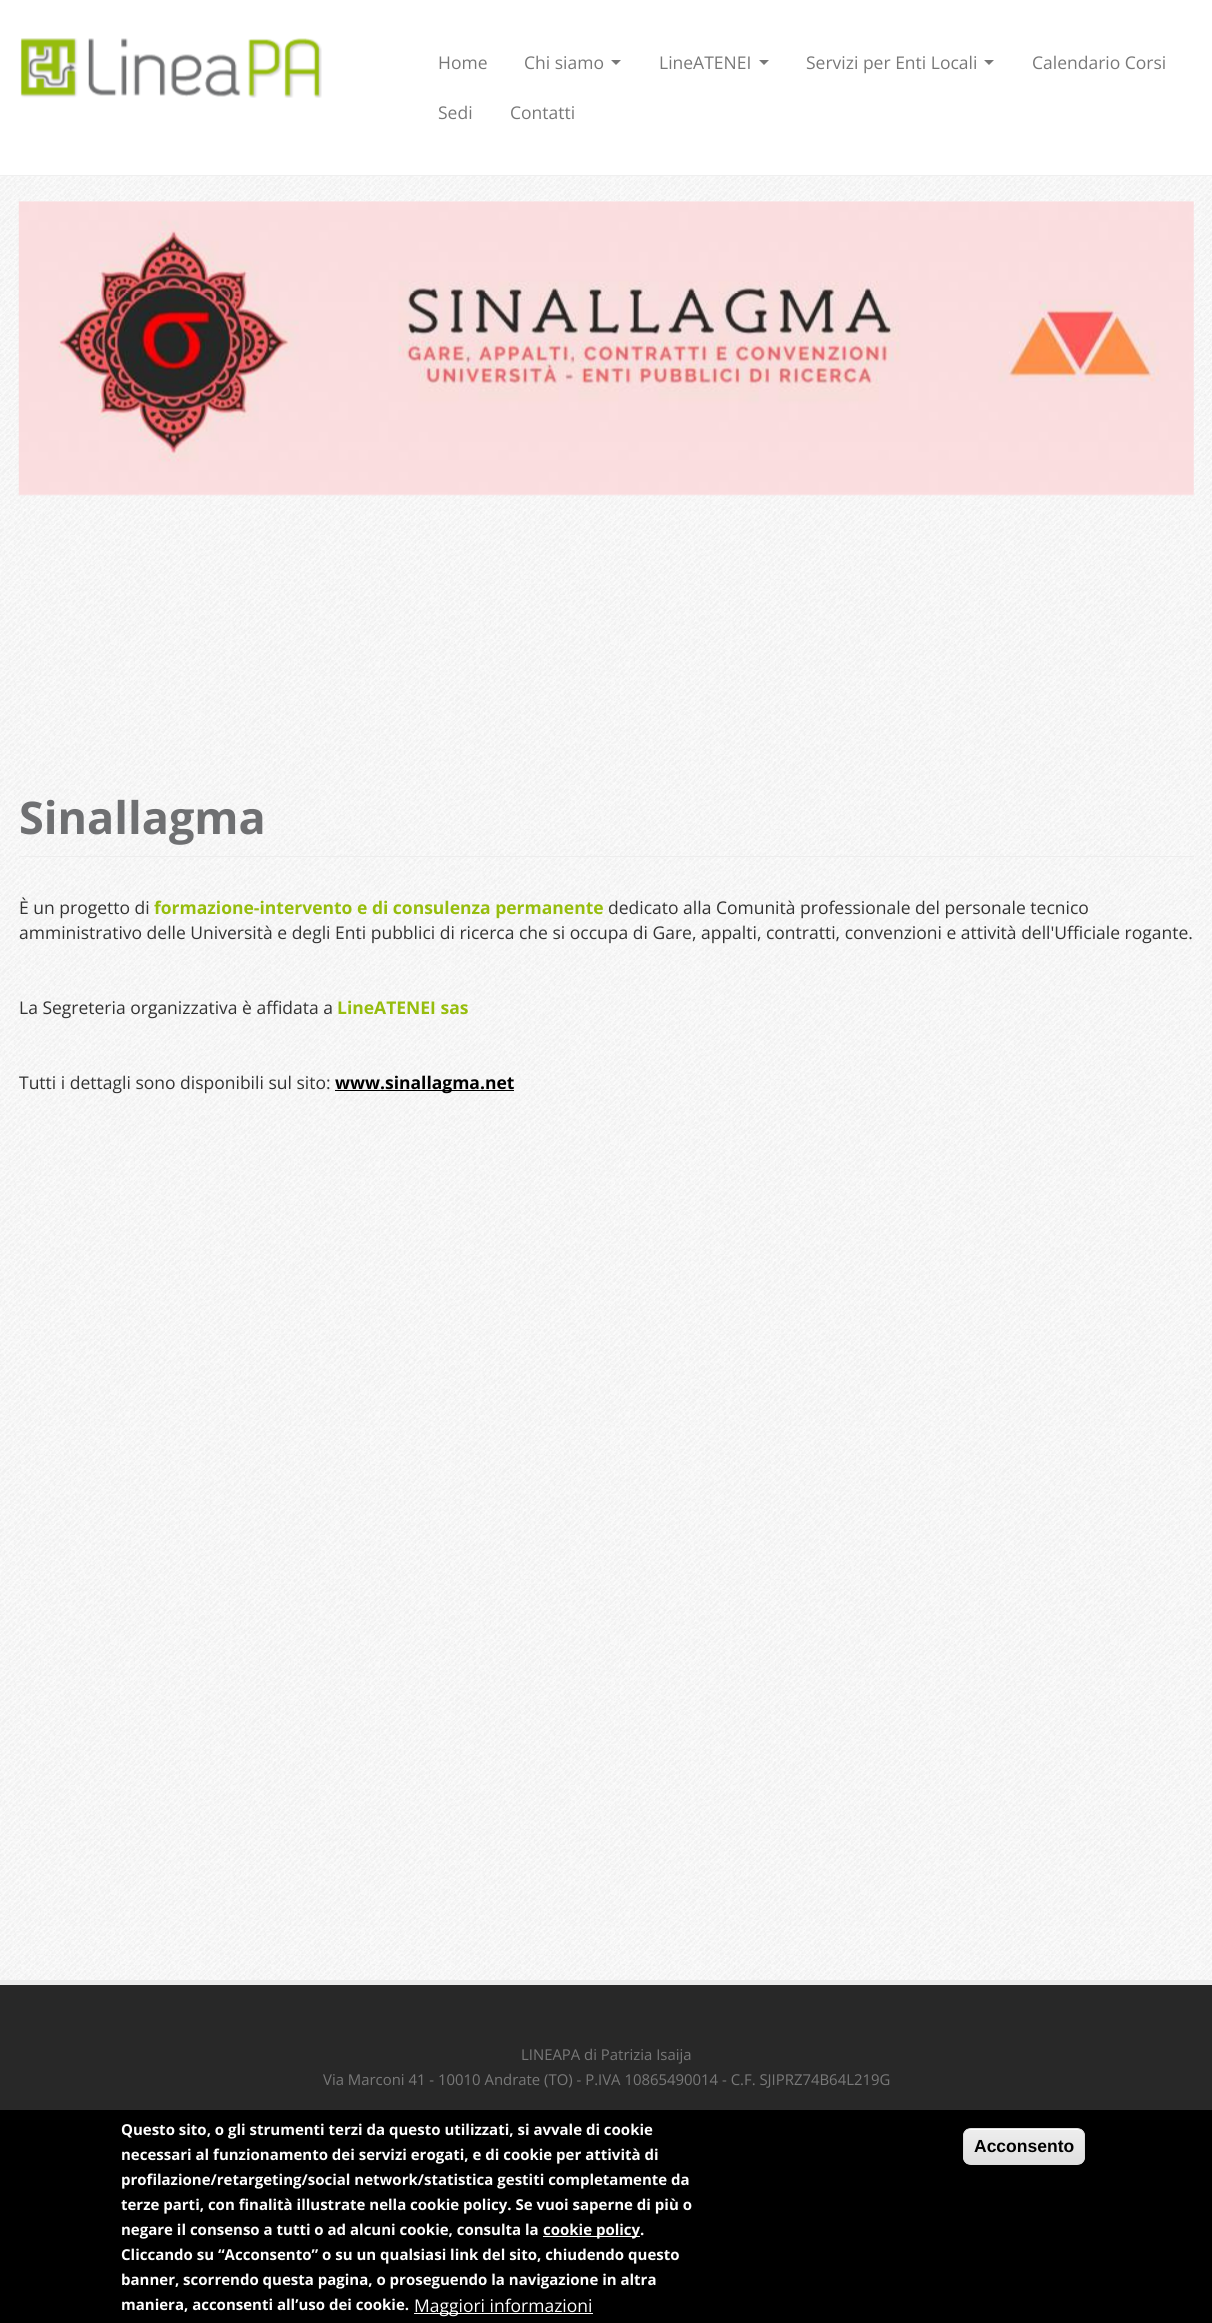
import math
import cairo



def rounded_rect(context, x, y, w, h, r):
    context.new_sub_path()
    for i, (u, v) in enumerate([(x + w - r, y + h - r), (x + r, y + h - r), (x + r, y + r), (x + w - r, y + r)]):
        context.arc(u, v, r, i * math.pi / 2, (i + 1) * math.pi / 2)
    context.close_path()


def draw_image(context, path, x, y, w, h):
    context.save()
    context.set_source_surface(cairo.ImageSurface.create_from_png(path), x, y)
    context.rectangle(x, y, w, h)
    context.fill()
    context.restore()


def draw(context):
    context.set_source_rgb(1, 1, 1)
    context.paint()
    draw_image(context, "images/1.png", 0, 176, 1212, 1804)
    context.set_source_rgb(240 / 255, 240 / 255, 240 / 255)
    context.rectangle(0, 175, 1212, 1)
    context.fill()
    draw_image(context, "images/2.png", 20, 38, 302, 60)
    context.set_source_rgb(119 / 255, 119 / 255, 119 / 255)
    context.new_path()
    context.move_to(611, 60)
    context.line_to(621, 60)
    context.line_to(616, 65)
    context.close_path()
    context.fill()
    context.new_path()
    context.move_to(759, 60)
    context.line_to(769, 60)
    context.line_to(764, 65)
    context.close_path()
    context.fill()
    context.new_path()
    context.move_to(984, 60)
    context.line_to(994, 60)
    context.line_to(989, 65)
    context.close_path()
    context.fill()
    draw_image(context, "images/3.png", 18, 201, 1176, 295)
    context.set_source_rgb(238 / 255, 238 / 255, 238 / 255)
    context.rectangle(19, 856, 1175, 1)
    context.fill()
    context.set_source_rgb(0, 0, 0)
    context.rectangle(335, 1090, 179, 1)
    context.fill()
    context.set_source_rgb(40 / 255, 40 / 255, 40 / 255)
    context.rectangle(0, 1985, 1212, 125)
    context.fill()
    context.set_source_rgb(236 / 255, 236 / 255, 236 / 255)
    context.rectangle(0, 1980, 1212, 5)
    context.fill()
    context.set_source_rgb(0, 0, 0)
    context.rectangle(0, 2110, 1212, 213)
    context.fill()
    context.set_source_rgb(1, 1, 1)
    context.rectangle(543, 2236, 97, 1)
    context.fill()
    context.rectangle(414, 2313, 179, 1)
    context.fill()
    context.save()
    rounded_rect(context, 963, 2128, 122, 37, 8)
    context.clip()
    gradient = cairo.LinearGradient(1024, 2129, 1024, 2164)
    gradient.add_color_stop_rgba(0.05, 237 / 255, 237 / 255, 237 / 255, 1)
    gradient.add_color_stop_rgba(1, 223 / 255, 223 / 255, 223 / 255, 1)
    context.set_source(gradient)
    context.rectangle(963, 2129, 122, 35)
    context.fill()
    context.restore()
    context.new_path()
    context.move_to(970, 2130)
    context.line_to(1078, 2130)
    context.curve_to(1081, 2130, 1084, 2133, 1084, 2136)
    context.curve_to(1084, 2125, 1066, 2129, 1060, 2129)
    context.line_to(988, 2129)
    context.curve_to(982, 2129, 964, 2125, 964, 2136)
    context.curve_to(964, 2133, 967, 2130, 970, 2130)
    context.close_path()
    context.fill()
    rounded_rect(context, 963.5, 2128.5, 121, 36, 7.5)
    context.set_source_rgb(220 / 255, 220 / 255, 220 / 255)
    context.set_line_width(1)
    context.stroke()
    context.select_font_face("Open Sans")
    context.set_font_size(17.5)
    context.set_source_rgb(120 / 255, 120 / 255, 120 / 255)
    context.move_to(438, 69)
    context.show_text("Home")
    context.move_to(524, 69)
    context.show_text("Chi siamo")
    context.move_to(659, 69)
    context.show_text("LineATENEI")
    context.move_to(806, 69)
    context.show_text("Servizi per Enti Locali")
    context.move_to(1032, 69)
    context.show_text("Calendario Corsi")
    context.move_to(438, 119)
    context.show_text("Sedi")
    context.move_to(510, 119)
    context.show_text("Contatti")
    context.select_font_face("Open Sans", cairo.FontSlant.NORMAL, cairo.FontWeight.BOLD)
    context.set_font_size(45)
    context.set_source_rgb(111 / 255, 112 / 255, 114 / 255)
    context.move_to(19, 834)
    context.show_text("Sinallagma")
    context.select_font_face("Open Sans")
    context.set_font_size(17.5)
    context.set_source_rgb(51 / 255, 51 / 255, 51 / 255)
    context.move_to(19, 914)
    context.show_text("È un progetto di")
    context.select_font_face("Open Sans", cairo.FontSlant.NORMAL, cairo.FontWeight.BOLD)
    context.set_source_rgb(150 / 255, 189 / 255, 13 / 255)
    context.move_to(154, 914)
    context.show_text("formazione-intervento e di consulenza permanente")
    context.select_font_face("Open Sans")
    context.set_source_rgb(51 / 255, 51 / 255, 51 / 255)
    context.move_to(608, 914)
    context.show_text("dedicato alla Comunità professionale del personale tecnico")
    context.move_to(19, 939)
    context.show_text("amministrativo delle Università e degli Enti pubblici di ricerca che si occupa di Gare, appalti, contratti, convenzioni e attività dell'Ufficiale rogante.")
    context.move_to(19, 1014)
    context.show_text("La Segreteria organizzativa è affidata a")
    context.select_font_face("Open Sans", cairo.FontSlant.NORMAL, cairo.FontWeight.BOLD)
    context.set_source_rgb(150 / 255, 189 / 255, 13 / 255)
    context.move_to(337, 1014)
    context.show_text("LineATENEI sas")
    context.select_font_face("Open Sans")
    context.set_source_rgb(51 / 255, 51 / 255, 51 / 255)
    context.move_to(19, 1089)
    context.show_text("Tutti i dettagli sono disponibili sul sito:")
    context.select_font_face("Open Sans", cairo.FontSlant.NORMAL, cairo.FontWeight.BOLD)
    context.set_source_rgb(0, 0, 0)
    context.move_to(335, 1089)
    context.show_text("www.sinallagma.net")
    context.select_font_face("Open Sans")
    context.set_font_size(14.9)
    context.set_source_rgb(120 / 255, 120 / 255, 120 / 255)
    context.move_to(521, 2060)
    context.show_text("LINEAPA di Patrizia Isaija")
    context.move_to(323, 2085)
    context.show_text("Via Marconi 41 - 10010 Andrate (TO) - P.IVA 10865490014 - C.F. SJIPRZ74B64L219G")
    context.select_font_face("Open Sans", cairo.FontSlant.NORMAL, cairo.FontWeight.BOLD)
    context.set_font_size(15)
    context.set_source_rgb(1, 1, 1)
    context.move_to(121, 2135)
    context.show_text("Questo sito, o gli strumenti terzi da questo utilizzati, si avvale di cookie")
    context.move_to(121, 2160)
    context.show_text("necessari al funzionamento dei servizi erogati, e di cookie per attività di")
    context.move_to(121, 2185)
    context.show_text("profilazione/retargeting/social network/statistica gestiti completamente da")
    context.move_to(121, 2210)
    context.show_text("terze parti, con finalità illustrate nella cookie policy. Se vuoi saperne di più o")
    context.move_to(121, 2235)
    context.show_text("negare il consenso a tutti o ad alcuni cookie, consulta la")
    context.move_to(543, 2235)
    context.show_text("cookie policy.")
    context.move_to(121, 2260)
    context.show_text("Cliccando su “Acconsento” o su un qualsiasi link del sito, chiudendo questo")
    context.move_to(121, 2285)
    context.show_text("banner, scorrendo questa pagina, o proseguendo la navigazione in altra")
    context.move_to(121, 2310)
    context.show_text("maniera, acconsenti all’uso dei cookie.")
    context.select_font_face("Open Sans")
    context.set_font_size(17.5)
    context.move_to(414, 2312)
    context.show_text("Maggiori informazioni")
    context.select_font_face("Liberation Sans", cairo.FontSlant.NORMAL, cairo.FontWeight.BOLD)
    context.set_source_rgb(0, 0, 0)
    context.move_to(974, 2152)
    context.show_text("Acconsento")


surface = cairo.ImageSurface(cairo.Format.RGB24, 1212, 2323)
context = cairo.Context(surface)
options = cairo.FontOptions()
options.set_hint_metrics(cairo.HintMetrics.OFF)
options.set_hint_style(cairo.HintStyle.NONE)
context.set_font_options(options)
context.set_miter_limit(4)
draw(context)
surface.write_to_png("out.png")
